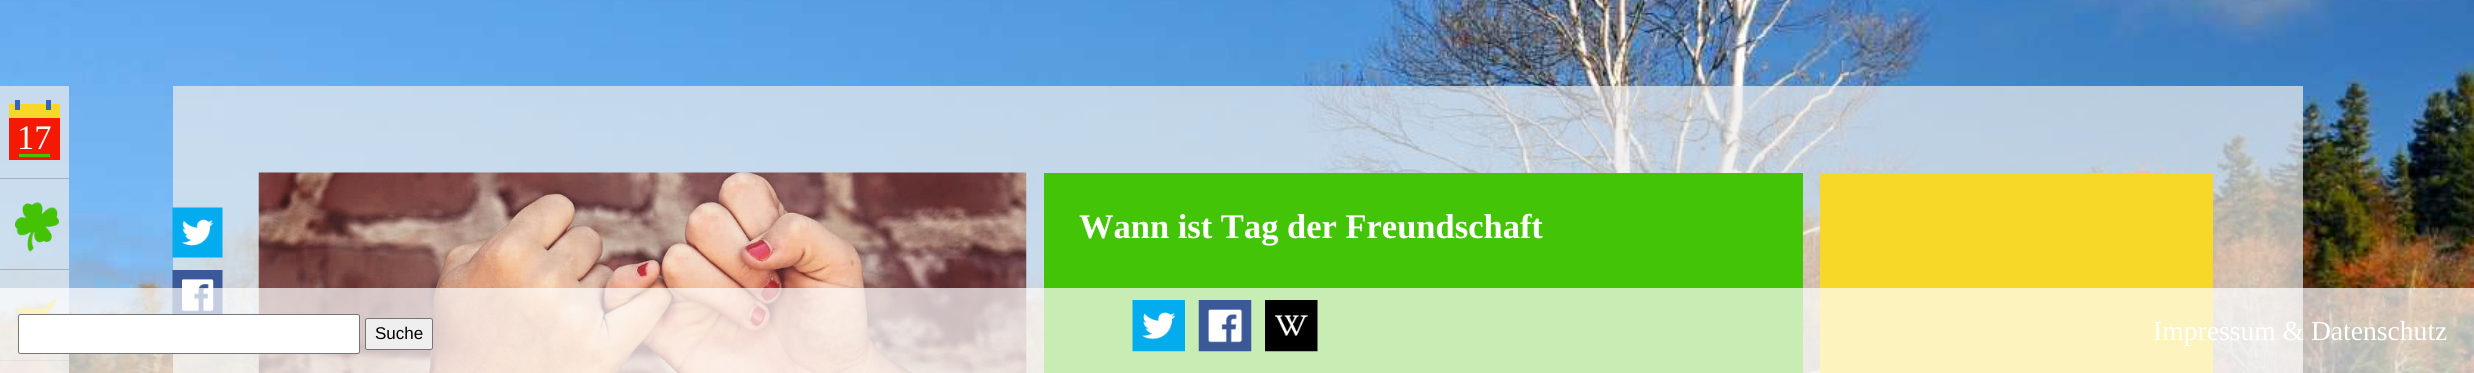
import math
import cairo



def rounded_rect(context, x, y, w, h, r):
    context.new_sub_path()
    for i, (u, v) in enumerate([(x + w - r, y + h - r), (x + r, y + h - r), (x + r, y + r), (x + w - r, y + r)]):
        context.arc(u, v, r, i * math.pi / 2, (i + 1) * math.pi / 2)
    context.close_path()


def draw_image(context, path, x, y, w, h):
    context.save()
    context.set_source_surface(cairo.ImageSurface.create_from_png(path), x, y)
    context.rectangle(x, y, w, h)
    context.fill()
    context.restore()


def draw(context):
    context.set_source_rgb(1, 1, 1)
    context.paint()
    draw_image(context, "images/1.png", 0, 0, 2474, 373)
    context.set_source_rgba(237 / 255, 237 / 255, 237 / 255, 0.7)
    context.rectangle(0, 86, 69, 287)
    context.fill()
    context.set_source_rgb(247 / 255, 215 / 255, 39 / 255)
    context.rectangle(9, 104, 51, 14)
    context.fill()
    context.set_source_rgb(51 / 255, 100 / 255, 195 / 255)
    context.rectangle(15, 100, 5, 10)
    context.fill()
    context.rectangle(46, 100, 5, 10)
    context.fill()
    context.set_source_rgb(243 / 255, 25 / 255, 3 / 255)
    context.rectangle(9, 118, 51, 42)
    context.fill()
    context.set_source_rgb(68 / 255, 196 / 255, 6 / 255)
    context.rectangle(19, 154, 31, 3)
    context.fill()
    context.set_source_rgb(161 / 255, 177 / 255, 191 / 255)
    context.rectangle(0, 178, 69, 1)
    context.fill()
    context.set_source_rgba(0, 0, 0, 0.2)
    context.rectangle(0, 269, 69, 1)
    context.fill()
    draw_image(context, "images/2.png", 15, 202, 44, 50)
    context.rectangle(0, 360, 69, 1)
    context.fill()
    draw_image(context, "images/3.png", 15, 300, 42, 31)
    context.set_source_rgba(237 / 255, 237 / 255, 237 / 255, 0.7)
    context.rectangle(173, 86, 2130, 287)
    context.fill()
    draw_image(context, "images/4.png", 172, 207, 51, 51)
    draw_image(context, "images/5.png", 172, 270, 51, 44)
    draw_image(context, "images/6.png", 258, 172, 769, 201)
    context.set_source_rgb(68 / 255, 196 / 255, 6 / 255)
    context.rectangle(1044, 173, 759, 200)
    context.fill()
    context.set_source_rgb(247 / 255, 215 / 255, 39 / 255)
    context.rectangle(1820, 173, 393, 200)
    context.fill()
    context.set_source_rgba(1, 1, 1, 0.7)
    context.rectangle(0, 288, 2474, 85)
    context.fill()
    context.set_source_rgb(1, 1, 1)
    rounded_rect(context, 18.5, 314.5, 341, 39, 2)
    context.fill_preserve()
    context.set_source_rgb(118 / 255, 118 / 255, 118 / 255)
    context.set_line_width(1)
    context.stroke()
    context.set_source_rgb(239 / 255, 239 / 255, 239 / 255)
    rounded_rect(context, 365.5, 318.5, 67, 31, 2)
    context.fill_preserve()
    context.set_source_rgb(118 / 255, 118 / 255, 118 / 255)
    context.stroke()
    draw_image(context, "images/7.png", 1132, 300, 53, 52)
    draw_image(context, "images/8.png", 1198, 300, 54, 52)
    draw_image(context, "images/9.png", 1265, 300, 53, 52)
    context.select_font_face("Liberation Serif")
    context.set_font_size(34.5)
    context.set_source_rgb(1, 1, 1)
    context.move_to(17, 149)
    context.show_text("17")
    context.select_font_face("Liberation Serif", cairo.FontSlant.NORMAL, cairo.FontWeight.BOLD)
    context.move_to(1079, 238)
    context.show_text("Wann ist Tag der Freundschaft")
    context.select_font_face("Liberation Sans")
    context.set_font_size(17)
    context.set_source_rgb(0, 0, 0)
    context.move_to(375, 339)
    context.show_text("Suche")
    context.select_font_face("Liberation Serif")
    context.set_font_size(27.6)
    context.set_source_rgb(1, 1, 1)
    context.move_to(2153, 340)
    context.show_text("Impressum & Datenschutz")


surface = cairo.ImageSurface(cairo.Format.RGB24, 2474, 373)
context = cairo.Context(surface)
options = cairo.FontOptions()
options.set_hint_metrics(cairo.HintMetrics.OFF)
options.set_hint_style(cairo.HintStyle.NONE)
context.set_font_options(options)
context.set_miter_limit(4)
draw(context)
surface.write_to_png("out.png")
